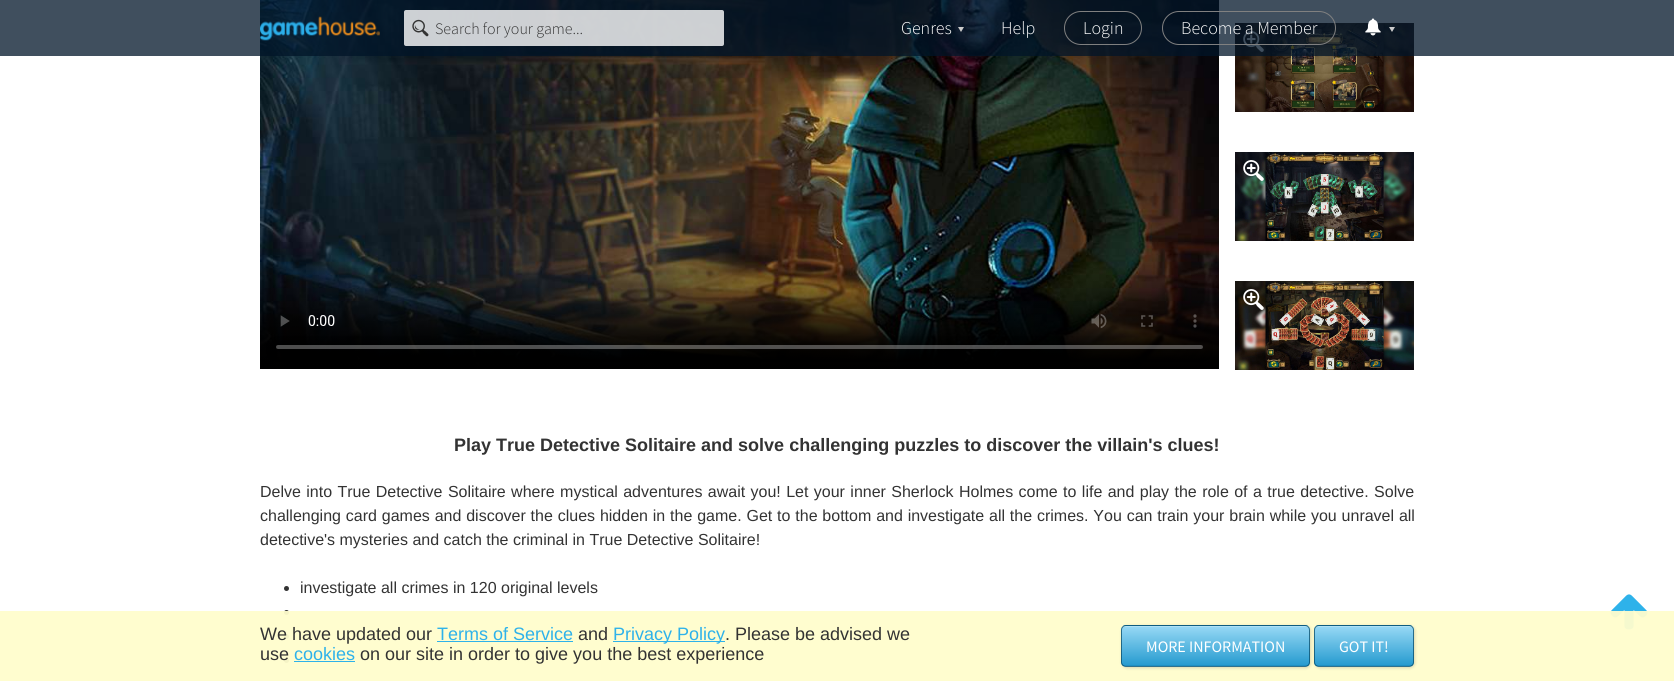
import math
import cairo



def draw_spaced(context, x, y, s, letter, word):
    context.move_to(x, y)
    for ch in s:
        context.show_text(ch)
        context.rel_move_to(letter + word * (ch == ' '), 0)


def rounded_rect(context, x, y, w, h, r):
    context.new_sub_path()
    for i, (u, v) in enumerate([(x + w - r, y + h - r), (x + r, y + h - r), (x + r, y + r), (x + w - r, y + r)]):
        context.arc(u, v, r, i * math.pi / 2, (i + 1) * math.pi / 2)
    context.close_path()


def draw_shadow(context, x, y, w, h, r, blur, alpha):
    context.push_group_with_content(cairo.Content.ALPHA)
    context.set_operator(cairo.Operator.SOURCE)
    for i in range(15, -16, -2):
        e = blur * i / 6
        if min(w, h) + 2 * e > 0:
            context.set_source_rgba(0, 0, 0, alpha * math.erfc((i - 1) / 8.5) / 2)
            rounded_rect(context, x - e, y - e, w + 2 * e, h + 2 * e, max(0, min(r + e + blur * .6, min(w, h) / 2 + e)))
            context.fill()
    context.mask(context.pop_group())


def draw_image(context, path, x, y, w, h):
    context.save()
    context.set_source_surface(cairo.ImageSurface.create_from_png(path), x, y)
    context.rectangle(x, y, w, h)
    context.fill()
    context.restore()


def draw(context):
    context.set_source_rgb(1, 1, 1)
    context.paint()
    draw_image(context, "images/4.png", 260, 0, 959, 369)
    draw_image(context, "images/5.png", 1235, 23, 179, 89)
    draw_image(context, "images/6.png", 1243, 31, 21, 21)
    context.set_source_rgba(0, 20 / 255, 40 / 255, 0.75)
    context.rectangle(0, 0, 1674, 56)
    context.fill()
    draw_image(context, "images/1.png", 260, 16, 120, 25)
    context.set_source_rgba(1, 1, 1, 0.8)
    rounded_rect(context, 404, 10, 320, 36, 2)
    context.fill()
    draw_image(context, "images/2.png", 412, 19, 17, 18)
    context.set_source_rgb(204 / 255, 204 / 255, 204 / 255)
    context.new_path()
    context.move_to(964, 27)
    context.line_to(958, 27)
    context.line_to(961, 32)
    context.close_path()
    context.fill()
    rounded_rect(context, 1064.5, 11.5, 77, 33, 16.5)
    context.set_source_rgb(128 / 255, 128 / 255, 128 / 255)
    context.set_line_width(1)
    context.stroke()
    rounded_rect(context, 1162.5, 11.5, 173, 33, 16.5)
    context.stroke()
    draw_image(context, "images/3.png", 1365, 18, 16, 18)
    context.set_source_rgb(204 / 255, 204 / 255, 204 / 255)
    context.new_path()
    context.move_to(1395, 27)
    context.line_to(1389, 27)
    context.line_to(1392, 32)
    context.close_path()
    context.fill()
    draw_image(context, "images/7.png", 1235, 152, 179, 89)
    draw_image(context, "images/8.png", 1243, 160, 21, 21)
    draw_image(context, "images/9.png", 1235, 281, 179, 89)
    draw_image(context, "images/10.png", 1243, 289, 21, 21)
    context.set_source_rgb(51 / 255, 51 / 255, 51 / 255)
    context.arc(286.5, 588.5, 2.5, 0, 2 * math.pi)
    context.fill()
    context.arc(286.5, 612.5, 2.5, 0, 2 * math.pi)
    context.fill()
    context.arc(286.5, 636.5, 2.5, 0, 2 * math.pi)
    context.fill()
    context.arc(286.5, 660.5, 2.5, 0, 2 * math.pi)
    context.fill()
    draw_image(context, "images/11.png", 1610, 594, 38, 36)
    context.set_source_rgba(1, 253 / 255, 205 / 255, 0.95)
    context.rectangle(0, 611, 1674, 70)
    context.fill()
    context.set_source_rgb(46 / 255, 178 / 255, 234 / 255)
    context.rectangle(437, 641, 136, 1)
    context.fill()
    context.rectangle(613, 641, 112, 1)
    context.fill()
    context.rectangle(294, 661, 61, 1)
    context.fill()
    context.set_source_rgb(0, 0, 0)
    draw_shadow(context, 1122, 626, 189, 42, 5, 1.5, 0.15)
    context.save()
    rounded_rect(context, 1121, 625, 189, 42, 5)
    context.clip()
    gradient = cairo.LinearGradient(1216, 586, 1216, 626)
    gradient.add_color_stop_rgba(0, 196 / 255, 233 / 255, 248 / 255, 1)
    gradient.add_color_stop_rgba(0.03, 148 / 255, 215 / 255, 244 / 255, 1)
    gradient.add_color_stop_rgba(0.97, 40 / 255, 156 / 255, 208 / 255, 1)
    gradient.add_color_stop_rgba(1, 24 / 255, 135 / 255, 184 / 255, 1)
    context.set_source(gradient)
    context.rectangle(1121, 625, 189, 1)
    context.fill()
    gradient = cairo.LinearGradient(1216, 626, 1216, 666)
    gradient.add_color_stop_rgba(0, 196 / 255, 233 / 255, 248 / 255, 1)
    gradient.add_color_stop_rgba(0.03, 148 / 255, 215 / 255, 244 / 255, 1)
    gradient.add_color_stop_rgba(0.97, 40 / 255, 156 / 255, 208 / 255, 1)
    gradient.add_color_stop_rgba(1, 24 / 255, 135 / 255, 184 / 255, 1)
    context.set_source(gradient)
    context.rectangle(1121, 626, 189, 40)
    context.fill()
    gradient = cairo.LinearGradient(1216, 666, 1216, 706)
    gradient.add_color_stop_rgba(0, 196 / 255, 233 / 255, 248 / 255, 1)
    gradient.add_color_stop_rgba(0.03, 148 / 255, 215 / 255, 244 / 255, 1)
    gradient.add_color_stop_rgba(0.97, 40 / 255, 156 / 255, 208 / 255, 1)
    gradient.add_color_stop_rgba(1, 24 / 255, 135 / 255, 184 / 255, 1)
    context.set_source(gradient)
    context.rectangle(1121, 666, 189, 1)
    context.fill()
    context.restore()
    rounded_rect(context, 1121.5, 625.5, 188, 41, 4.5)
    context.set_source_rgba(8 / 255, 76 / 255, 105 / 255, 0.75)
    context.stroke()
    context.set_source_rgb(0, 0, 0)
    draw_shadow(context, 1315, 626, 100, 42, 5, 1.5, 0.15)
    context.save()
    rounded_rect(context, 1314, 625, 100, 42, 5)
    context.clip()
    gradient = cairo.LinearGradient(1364, 586, 1364, 626)
    gradient.add_color_stop_rgba(0, 196 / 255, 233 / 255, 248 / 255, 1)
    gradient.add_color_stop_rgba(0.03, 148 / 255, 215 / 255, 244 / 255, 1)
    gradient.add_color_stop_rgba(0.97, 40 / 255, 156 / 255, 208 / 255, 1)
    gradient.add_color_stop_rgba(1, 24 / 255, 135 / 255, 184 / 255, 1)
    context.set_source(gradient)
    context.rectangle(1314, 625, 100, 1)
    context.fill()
    gradient = cairo.LinearGradient(1364, 626, 1364, 666)
    gradient.add_color_stop_rgba(0, 196 / 255, 233 / 255, 248 / 255, 1)
    gradient.add_color_stop_rgba(0.03, 148 / 255, 215 / 255, 244 / 255, 1)
    gradient.add_color_stop_rgba(0.97, 40 / 255, 156 / 255, 208 / 255, 1)
    gradient.add_color_stop_rgba(1, 24 / 255, 135 / 255, 184 / 255, 1)
    context.set_source(gradient)
    context.rectangle(1314, 626, 100, 40)
    context.fill()
    gradient = cairo.LinearGradient(1364, 666, 1364, 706)
    gradient.add_color_stop_rgba(0, 196 / 255, 233 / 255, 248 / 255, 1)
    gradient.add_color_stop_rgba(0.03, 148 / 255, 215 / 255, 244 / 255, 1)
    gradient.add_color_stop_rgba(0.97, 40 / 255, 156 / 255, 208 / 255, 1)
    gradient.add_color_stop_rgba(1, 24 / 255, 135 / 255, 184 / 255, 1)
    context.set_source(gradient)
    context.rectangle(1314, 666, 100, 1)
    context.fill()
    context.restore()
    rounded_rect(context, 1314.5, 625.5, 99, 41, 4.5)
    context.set_source_rgba(8 / 255, 76 / 255, 105 / 255, 0.75)
    context.stroke()
    context.select_font_face("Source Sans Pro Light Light")
    context.set_font_size(16)
    context.set_source_rgb(51 / 255, 51 / 255, 51 / 255)
    context.move_to(435, 34)
    context.show_text("Search for your game...")
    context.set_font_size(18)
    context.set_source_rgb(1, 1, 1)
    context.move_to(901, 34)
    context.show_text("Genres")
    context.move_to(1001, 34)
    context.show_text("Help")
    context.move_to(1083, 34)
    context.show_text("Login")
    context.move_to(1181, 34)
    context.show_text("Become a Member")
    context.select_font_face("Liberation Sans", cairo.FontSlant.NORMAL, cairo.FontWeight.BOLD)
    context.set_source_rgb(51 / 255, 51 / 255, 51 / 255)
    context.move_to(454, 451)
    context.show_text("Play True Detective Solitaire and solve challenging puzzles to discover the villain's clues!")
    context.select_font_face("Liberation Sans")
    context.set_font_size(16)
    draw_spaced(context, 260, 497, "Delve into True Detective Solitaire where mystical adventures await you! Let your inner Sherlock Holmes come to life and play the role of a true detective. Solve", 0, 0.95)
    draw_spaced(context, 260, 521, "challenging card games and discover the clues hidden in the game. Get to the bottom and investigate all the crimes. You can train your brain while you unravel all", 0, 0.4)
    context.move_to(260, 545)
    context.show_text("detective's mysteries and catch the criminal in True Detective Solitaire!")
    context.move_to(300, 593)
    context.show_text("investigate all crimes in 120 original levels")
    context.set_font_size(18)
    context.move_to(260, 640)
    context.show_text("We have updated our")
    context.set_source_rgb(46 / 255, 178 / 255, 234 / 255)
    context.move_to(437, 640)
    context.show_text("Terms of Service")
    context.set_source_rgb(51 / 255, 51 / 255, 51 / 255)
    context.move_to(578, 640)
    context.show_text("and")
    context.set_source_rgb(46 / 255, 178 / 255, 234 / 255)
    context.move_to(613, 640)
    context.show_text("Privacy Policy")
    context.set_source_rgb(51 / 255, 51 / 255, 51 / 255)
    context.move_to(725, 640)
    context.show_text(". Please be advised we")
    context.move_to(260, 660)
    context.show_text("use")
    context.set_source_rgb(46 / 255, 178 / 255, 234 / 255)
    context.move_to(294, 660)
    context.show_text("cookies")
    context.set_source_rgb(51 / 255, 51 / 255, 51 / 255)
    context.move_to(360, 660)
    context.show_text("on our site in order to give you the best experience")
    context.select_font_face("Source Sans Pro")
    context.set_font_size(16)
    context.set_source_rgb(1, 1, 1)
    context.move_to(1146, 652)
    context.show_text("MORE INFORMATION")
    context.move_to(1339, 652)
    context.show_text("GOT IT!")


surface = cairo.ImageSurface(cairo.Format.RGB24, 1674, 681)
context = cairo.Context(surface)
options = cairo.FontOptions()
options.set_hint_metrics(cairo.HintMetrics.OFF)
options.set_hint_style(cairo.HintStyle.NONE)
context.set_font_options(options)
context.set_miter_limit(4)
draw(context)
surface.write_to_png("out.png")
